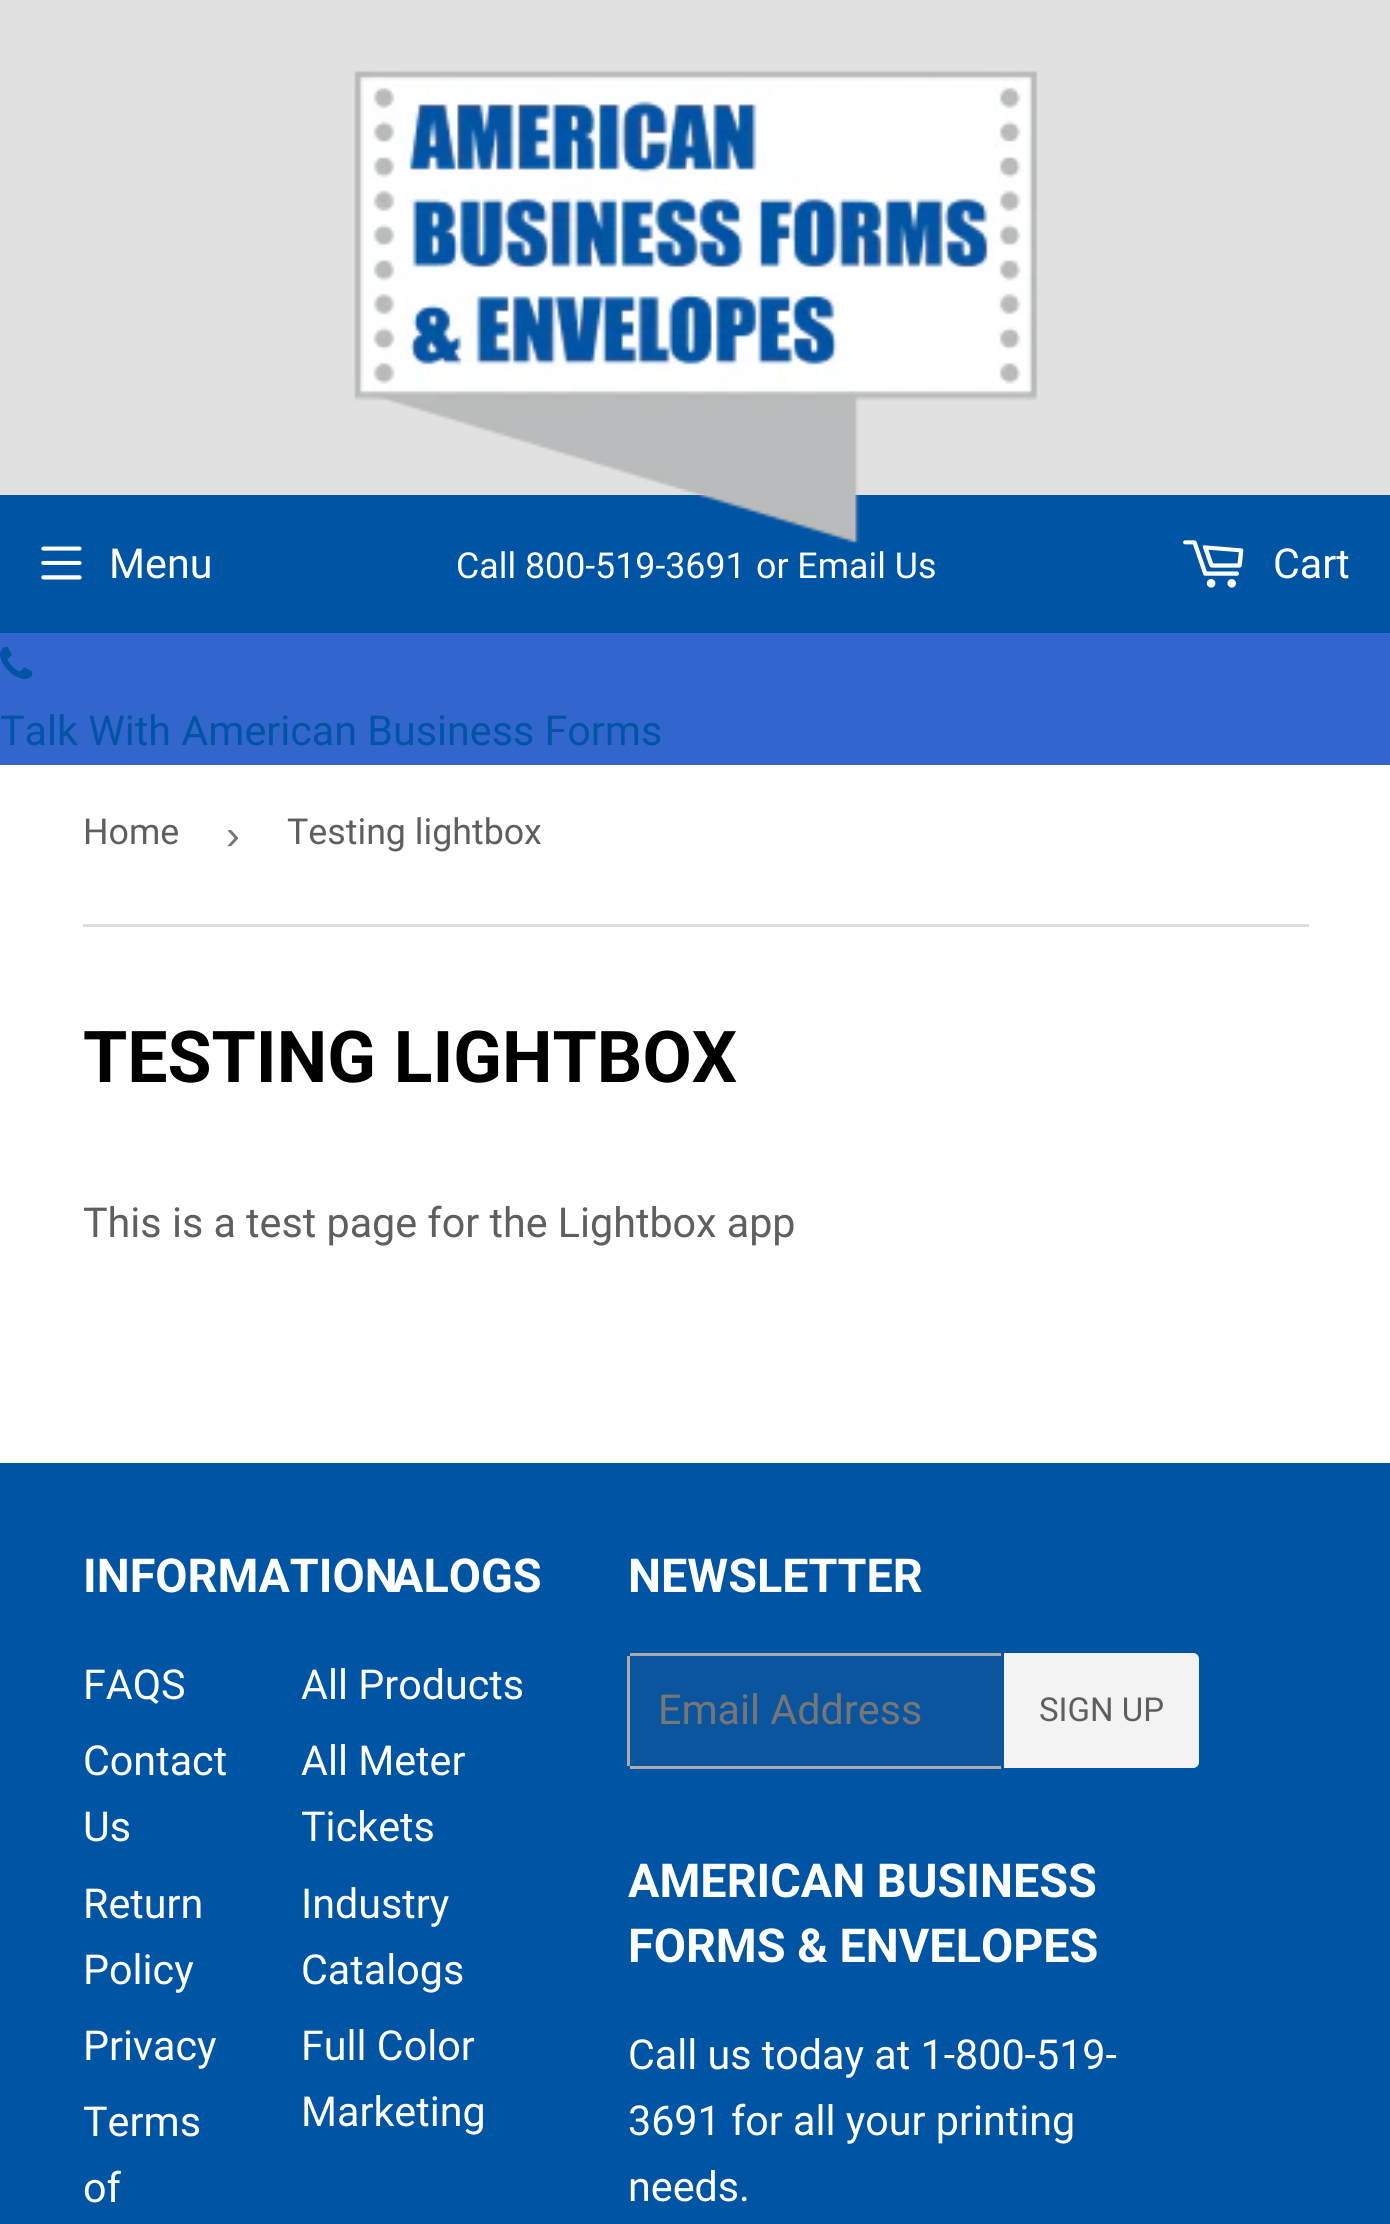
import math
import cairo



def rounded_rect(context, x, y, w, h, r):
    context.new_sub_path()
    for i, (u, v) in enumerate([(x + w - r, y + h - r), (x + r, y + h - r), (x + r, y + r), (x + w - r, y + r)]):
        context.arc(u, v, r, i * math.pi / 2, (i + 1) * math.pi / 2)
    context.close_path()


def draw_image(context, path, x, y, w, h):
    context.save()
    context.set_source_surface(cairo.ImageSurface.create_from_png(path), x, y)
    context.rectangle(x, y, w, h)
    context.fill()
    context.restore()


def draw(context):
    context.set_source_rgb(1, 1, 1)
    context.paint()
    context.set_source_rgb(225 / 255, 225 / 255, 225 / 255)
    context.rectangle(0, 0, 1390, 495)
    context.fill()
    context.set_source_rgb(0, 84 / 255, 164 / 255)
    context.rectangle(0, 495, 1390, 138)
    context.fill()
    draw_image(context, "images/1.png", 354, 70, 684, 475)
    draw_image(context, "images/2.png", 41, 546, 41, 34)
    draw_image(context, "images/3.png", 1183, 540, 61, 48)
    context.set_source_rgb(51 / 255, 102 / 255, 204 / 255)
    context.rectangle(0, 633, 1390, 132)
    context.fill()
    draw_image(context, "images/4.png", 0, 646, 33, 34)
    context.set_source_rgb(222 / 255, 222 / 255, 222 / 255)
    context.rectangle(83, 924, 1226, 3)
    context.fill()
    context.set_source_rgb(0, 84 / 255, 164 / 255)
    context.rectangle(0, 1463, 1390, 761)
    context.fill()
    context.set_source_rgb(10 / 255, 85 / 255, 157 / 255)
    rounded_rect(context, 627, 1653, 377, 115, 6)
    context.fill()
    context.set_source_rgb(171 / 255, 171 / 255, 171 / 255)
    context.rectangle(630, 1653, 371, 3)
    context.fill()
    context.rectangle(630, 1766, 371, 3)
    context.fill()
    context.rectangle(627, 1656, 3, 110)
    context.fill()
    context.set_source_rgb(243 / 255, 243 / 255, 243 / 255)
    context.new_path()
    context.move_to(1004, 1653)
    context.line_to(1193, 1653)
    context.curve_to(1196.5, 1653, 1199, 1655.5, 1199, 1659)
    context.line_to(1199, 1762)
    context.curve_to(1199, 1765.5, 1196.5, 1768, 1193, 1768)
    context.line_to(1004, 1768)
    context.close_path()
    context.fill()
    context.select_font_face("Roboto")
    context.set_font_size(41.25)
    context.set_source_rgb(1, 1, 1)
    context.move_to(109, 578)
    context.show_text("Menu")
    context.set_font_size(35.75)
    context.move_to(456, 578)
    context.show_text("Call 800-519-3691")
    context.move_to(756, 578)
    context.show_text("or Email Us")
    context.set_font_size(41.25)
    context.move_to(1273, 578)
    context.show_text("Cart")
    context.set_source_rgb(0, 84 / 255, 164 / 255)
    context.move_to(0, 745)
    context.show_text("Talk With American Business Forms")
    context.set_font_size(35.75)
    context.set_source_rgb(95 / 255, 95 / 255, 95 / 255)
    context.move_to(83, 844)
    context.show_text("Home")
    context.select_font_face("Liberation Sans")
    context.set_font_size(41.25)
    context.set_source_rgb(118 / 255, 118 / 255, 118 / 255)
    context.move_to(226, 849)
    context.show_text("›")
    context.select_font_face("Roboto")
    context.set_font_size(35.75)
    context.set_source_rgb(95 / 255, 95 / 255, 95 / 255)
    context.move_to(287, 844)
    context.show_text("Testing lightbox")
    context.select_font_face("Roboto", cairo.FontSlant.NORMAL, cairo.FontWeight.BOLD)
    context.set_font_size(71.5)
    context.set_source_rgb(0, 0, 0)
    context.move_to(83, 1082)
    context.show_text("TESTING LIGHTBOX")
    context.select_font_face("Roboto")
    context.set_font_size(41.25)
    context.set_source_rgb(95 / 255, 95 / 255, 95 / 255)
    context.move_to(83, 1237)
    context.show_text("This is a test page for the Lightbox app")
    context.select_font_face("Roboto", cairo.FontSlant.NORMAL, cairo.FontWeight.BOLD)
    context.set_font_size(46.75)
    context.set_source_rgb(1, 1, 1)
    context.move_to(83, 1592)
    context.show_text("INFORMATION")
    context.select_font_face("Roboto")
    context.set_font_size(41.25)
    context.move_to(83, 1699)
    context.show_text("FAQS")
    context.move_to(83, 1775)
    context.show_text("Contact")
    context.move_to(83, 1841)
    context.show_text("Us")
    context.move_to(83, 1918)
    context.show_text("Return")
    context.move_to(83, 1984)
    context.show_text("Policy")
    context.move_to(83, 2060)
    context.show_text("Privacy")
    context.move_to(83, 2136)
    context.show_text("Terms")
    context.move_to(83, 2202)
    context.show_text("of")
    context.select_font_face("Roboto", cairo.FontSlant.NORMAL, cairo.FontWeight.BOLD)
    context.set_font_size(46.75)
    context.move_to(392, 1592)
    context.show_text("ALOGS")
    context.select_font_face("Roboto")
    context.set_font_size(41.25)
    context.move_to(301, 1699)
    context.show_text("All Products")
    context.move_to(301, 1775)
    context.show_text("All Meter")
    context.move_to(301, 1841)
    context.show_text("Tickets")
    context.move_to(301, 1918)
    context.show_text("Industry")
    context.move_to(301, 1984)
    context.show_text("Catalogs")
    context.move_to(301, 2060)
    context.show_text("Full Color")
    context.move_to(301, 2126)
    context.show_text("Marketing")
    context.select_font_face("Roboto", cairo.FontSlant.NORMAL, cairo.FontWeight.BOLD)
    context.set_font_size(46.75)
    context.move_to(628, 1592)
    context.show_text("NEWSLETTER")
    context.select_font_face("Roboto")
    context.set_font_size(41.25)
    context.set_source_rgb(118 / 255, 118 / 255, 118 / 255)
    context.move_to(658, 1724)
    context.show_text("Email Address")
    context.set_font_size(33)
    context.set_source_rgb(95 / 255, 95 / 255, 95 / 255)
    context.move_to(1039, 1721)
    context.show_text("SIGN UP")
    context.select_font_face("Roboto", cairo.FontSlant.NORMAL, cairo.FontWeight.BOLD)
    context.set_font_size(46.75)
    context.set_source_rgb(1, 1, 1)
    context.move_to(628, 1897)
    context.show_text("AMERICAN BUSINESS")
    context.move_to(628, 1962)
    context.show_text("FORMS & ENVELOPES")
    context.select_font_face("Roboto")
    context.set_font_size(41.25)
    context.move_to(628, 2069)
    context.show_text("Call us today at 1-800-519-")
    context.move_to(628, 2135)
    context.show_text("3691 for all your printing")
    context.move_to(628, 2201)
    context.show_text("needs.")


surface = cairo.ImageSurface(cairo.Format.RGB24, 1390, 2224)
context = cairo.Context(surface)
options = cairo.FontOptions()
options.set_hint_metrics(cairo.HintMetrics.OFF)
options.set_hint_style(cairo.HintStyle.NONE)
context.set_font_options(options)
context.set_miter_limit(4)
draw(context)
surface.write_to_png("out.png")
